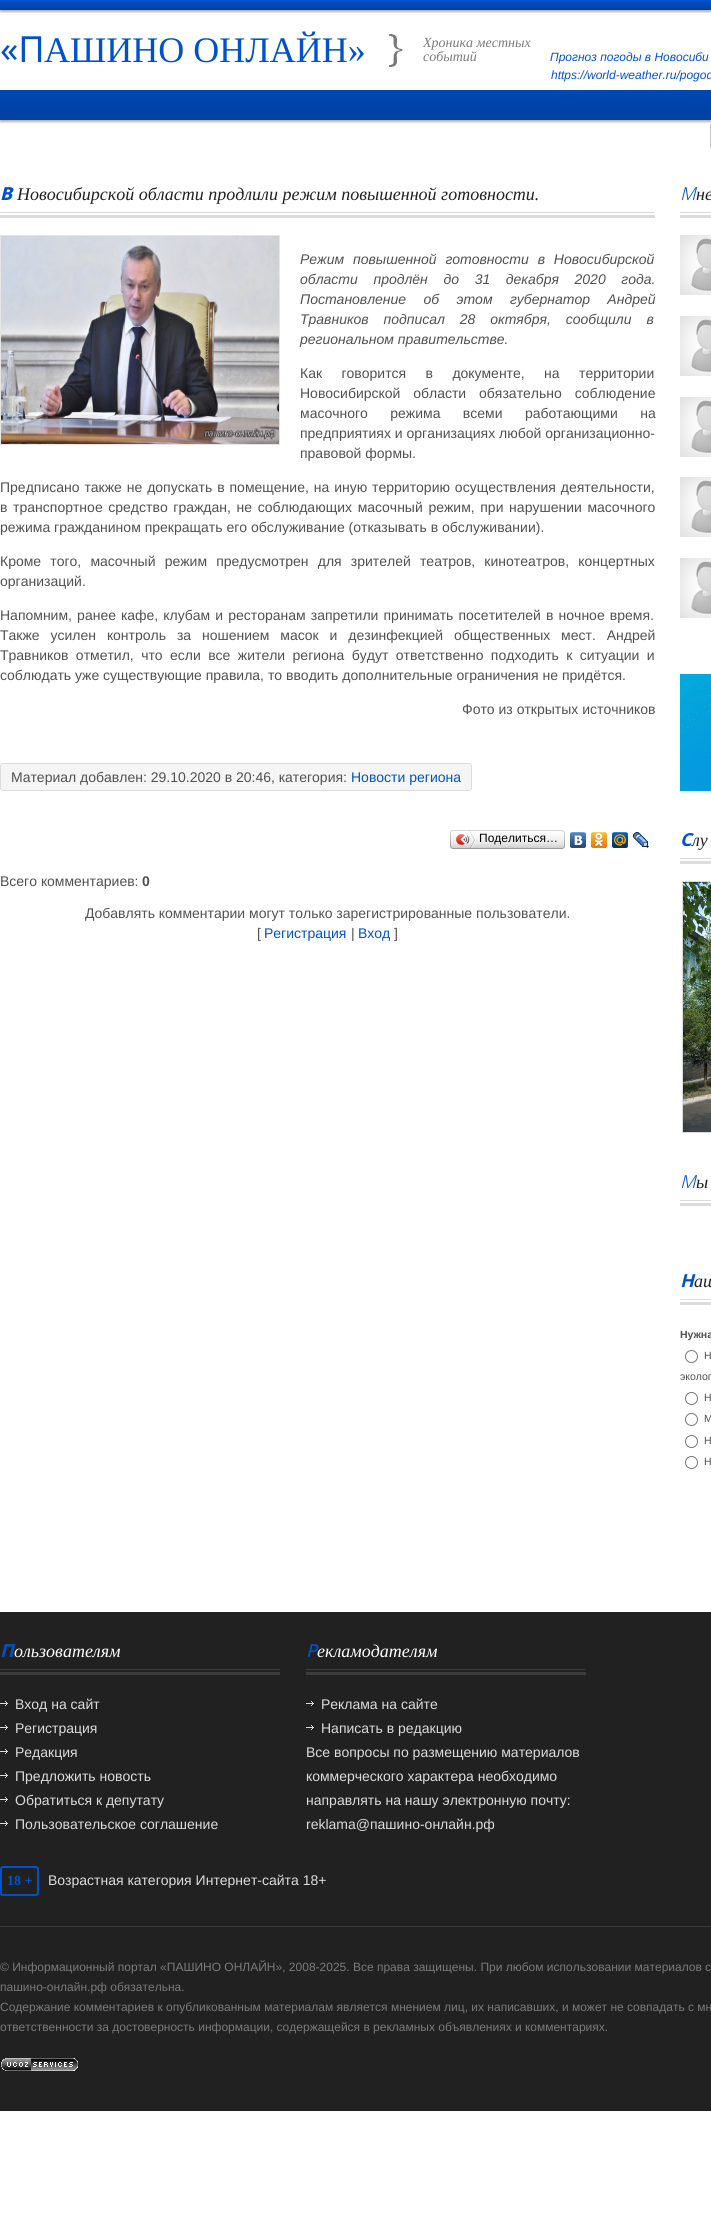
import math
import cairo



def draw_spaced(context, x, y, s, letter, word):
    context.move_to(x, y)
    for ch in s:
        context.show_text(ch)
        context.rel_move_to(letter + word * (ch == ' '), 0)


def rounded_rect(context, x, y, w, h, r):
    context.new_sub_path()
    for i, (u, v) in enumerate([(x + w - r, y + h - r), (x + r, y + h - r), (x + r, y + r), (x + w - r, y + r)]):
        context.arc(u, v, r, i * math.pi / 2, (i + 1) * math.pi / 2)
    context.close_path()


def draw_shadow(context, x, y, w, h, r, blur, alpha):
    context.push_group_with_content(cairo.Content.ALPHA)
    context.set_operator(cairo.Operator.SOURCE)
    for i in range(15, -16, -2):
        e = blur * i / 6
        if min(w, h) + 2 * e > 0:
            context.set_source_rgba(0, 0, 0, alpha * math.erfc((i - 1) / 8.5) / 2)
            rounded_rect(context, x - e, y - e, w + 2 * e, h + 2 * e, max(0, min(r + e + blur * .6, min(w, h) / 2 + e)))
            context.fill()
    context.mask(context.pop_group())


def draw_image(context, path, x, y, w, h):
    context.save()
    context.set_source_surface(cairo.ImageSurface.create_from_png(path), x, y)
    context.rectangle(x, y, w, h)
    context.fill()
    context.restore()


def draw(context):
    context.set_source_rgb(1, 1, 1)
    context.paint()
    context.set_source_rgb(0, 0, 0)
    draw_shadow(context, 0, 2, 711, 10, 0, 1, 0.3)
    gradient = cairo.LinearGradient(356, 0, 356, 10)
    gradient.add_color_stop_rgba(0, 0, 82 / 255, 204 / 255, 1)
    gradient.add_color_stop_rgba(1, 0, 64 / 255, 161 / 255, 1)
    context.set_source(gradient)
    context.rectangle(0, 0, 711, 10)
    context.fill()
    draw_image(context, "images/1.png", 389, 34, 14, 33)
    context.set_source_rgb(0, 0, 0)
    draw_shadow(context, 0, 92, 711, 30, 0, 1, 0.3)
    rounded_rect(context, 711, 122, 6, 28, 4)
    context.set_source_rgb(201 / 255, 201 / 255, 201 / 255)
    context.stroke()
    gradient = cairo.LinearGradient(356, 90, 356, 120)
    gradient.add_color_stop_rgba(0, 0, 71 / 255, 178 / 255, 1)
    gradient.add_color_stop_rgba(1, 0, 64 / 255, 161 / 255, 1)
    context.set_source(gradient)
    context.rectangle(0, 90, 711, 30)
    context.fill()
    draw_image(context, "images/2.png", 0, 212, 655, 6)
    context.rectangle(0.5, 235.5, 279, 209)
    context.set_source_rgb(230 / 255, 230 / 255, 230 / 255)
    context.set_line_width(1)
    context.stroke()
    draw_image(context, "images/3.png", 1, 236, 278, 208)
    context.set_source_rgb(245 / 255, 245 / 255, 245 / 255)
    rounded_rect(context, 0.5, 763.5, 471, 27, 2.5)
    context.fill_preserve()
    context.set_source_rgb(220 / 255, 220 / 255, 220 / 255)
    context.stroke()
    draw_image(context, "images/4.png", 453, 830, 109, 19)
    draw_image(context, "images/5.png", 450, 830, 3, 19)
    draw_image(context, "images/6.png", 456, 831, 20, 17)
    draw_image(context, "images/7.png", 562, 830, 3, 19)
    draw_image(context, "images/8.png", 570, 832, 16, 16)
    draw_image(context, "images/9.png", 591, 832, 16, 16)
    draw_image(context, "images/10.png", 612, 832, 16, 16)
    draw_image(context, "images/11.png", 633, 832, 16, 16)
    draw_image(context, "images/12.png", 680, 212, 31, 6)
    draw_image(context, "images/13.png", 680, 235, 31, 60)
    draw_image(context, "images/13.png", 680, 316, 31, 60)
    draw_image(context, "images/13.png", 680, 397, 31, 60)
    draw_image(context, "images/13.png", 680, 477, 31, 60)
    draw_image(context, "images/13.png", 680, 558, 31, 60)
    draw_image(context, "images/14.png", 680, 674, 31, 117)
    draw_image(context, "images/12.png", 680, 858, 31, 6)
    context.rectangle(682.5, 881.5, 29, 251)
    context.stroke()
    draw_image(context, "images/15.png", 683, 882, 28, 250)
    draw_image(context, "images/12.png", 680, 1200, 31, 6)
    draw_image(context, "images/12.png", 680, 1299, 31, 6)
    context.arc(691.5, 1356.5, 6, 0, 2 * math.pi)
    context.set_source_rgb(118 / 255, 118 / 255, 118 / 255)
    context.stroke()
    context.arc(691.5, 1398.5, 6, 0, 2 * math.pi)
    context.stroke()
    context.arc(691.5, 1419.5, 6, 0, 2 * math.pi)
    context.stroke()
    context.arc(691.5, 1441.5, 6, 0, 2 * math.pi)
    context.stroke()
    context.arc(691.5, 1462.5, 6, 0, 2 * math.pi)
    context.stroke()
    context.set_source_rgb(33 / 255, 33 / 255, 33 / 255)
    context.rectangle(0, 1612, 711, 499)
    context.fill()
    draw_image(context, "images/16.png", 0, 1669, 280, 6)
    draw_image(context, "images/17.png", 0, 1701, 8, 5)
    draw_image(context, "images/17.png", 0, 1725, 8, 5)
    draw_image(context, "images/17.png", 0, 1749, 8, 5)
    draw_image(context, "images/17.png", 0, 1773, 8, 5)
    draw_image(context, "images/17.png", 0, 1797, 8, 5)
    draw_image(context, "images/17.png", 0, 1821, 8, 5)
    draw_image(context, "images/16.png", 306, 1669, 280, 6)
    draw_image(context, "images/17.png", 306, 1701, 8, 5)
    draw_image(context, "images/17.png", 306, 1725, 8, 5)
    rounded_rect(context, 1, 1867, 37, 28, 2)
    context.set_source_rgb(0, 82 / 255, 204 / 255)
    context.set_line_width(2)
    context.stroke()
    context.set_source_rgb(60 / 255, 60 / 255, 60 / 255)
    context.rectangle(0, 1926, 711, 1)
    context.fill()
    draw_image(context, "images/18.png", 1, 2058, 77, 13)
    context.select_font_face("Noto Sans")
    context.set_font_size(36)
    context.set_source_rgb(0, 82 / 255, 204 / 255)
    context.move_to(0, 62)
    context.show_text("«П")
    context.select_font_face("Liberation Serif")
    context.move_to(44, 62)
    context.show_text("АШИНО ОНЛАЙН»")
    context.select_font_face("Liberation Serif", cairo.FontSlant.ITALIC)
    context.set_font_size(14)
    context.set_source_rgb(122 / 255, 122 / 255, 122 / 255)
    context.move_to(423, 47)
    context.show_text("Хроника местных")
    context.move_to(423, 61)
    context.show_text("событий")
    context.select_font_face("Liberation Sans", cairo.FontSlant.ITALIC)
    context.set_font_size(12)
    context.set_source_rgb(0, 82 / 255, 204 / 255)
    context.move_to(550, 61)
    context.show_text("Прогноз погоды в Новосиби")
    context.move_to(551, 79)
    context.show_text("https://world-weather.ru/pogod")
    context.select_font_face("Noto Sans ExtraBold", cairo.FontSlant.ITALIC)
    context.set_font_size(18)
    context.move_to(0, 200)
    context.show_text("В")
    context.select_font_face("Liberation Serif", cairo.FontSlant.ITALIC)
    context.set_source_rgb(33 / 255, 33 / 255, 33 / 255)
    context.move_to(17, 200)
    context.show_text("Новосибирской области продлили режим повышенной готовности.")
    context.select_font_face("Liberation Sans", cairo.FontSlant.ITALIC)
    context.set_font_size(14)
    context.set_source_rgb(81 / 255, 81 / 255, 81 / 255)
    draw_spaced(context, 300, 264, "Режим повышенной готовности в Новосибирской", 0, 5)
    draw_spaced(context, 300, 284, "области продлён до 31 декабря 2020 года.", 0, 11.75)
    draw_spaced(context, 300, 304, "Постановление об этом губернатор Андрей", 0, 13.5)
    draw_spaced(context, 300, 324, "Травников подписал 28 октября, сообщили в", 0, 11)
    context.move_to(300, 344)
    context.show_text("региональном правительстве.")
    context.select_font_face("Liberation Sans")
    draw_spaced(context, 300, 378, "Как говорится в документе, на территории", 0, 15.5)
    draw_spaced(context, 300, 398, "Новосибирской области обязательно соблюдение", 0, 9)
    draw_spaced(context, 300, 418, "масочного режима всеми работающими на", 0, 18.5)
    context.move_to(300, 438)
    context.show_text("предприятиях и организациях любой организационно-")
    context.move_to(300, 458)
    context.show_text("правовой формы.")
    draw_spaced(context, 0, 492, "Предписано также не допускать в помещение, на иную территорию осуществления деятельности,", 0, 1)
    draw_spaced(context, 0, 512, "в транспортное средство граждан, не соблюдающих масочный режим, при нарушении масочного", 0, 1.75)
    context.move_to(0, 532)
    context.show_text("режима гражданином прекращать его обслуживание (отказывать в обслуживании).")
    draw_spaced(context, 0, 566, "Кроме того, масочный режим предусмотрен для зрителей театров, кинотеатров, концертных", 0, 5.25)
    context.move_to(0, 586)
    context.show_text("организаций.")
    draw_spaced(context, 0, 620, "Напомним, ранее кафе, клубам и ресторанам запретили принимать посетителей в ночное время.", 0, 1.25)
    draw_spaced(context, 0, 640, "Также усилен контроль за ношением масок и дезинфекцией общественных мест. Андрей", 0, 7)
    draw_spaced(context, 0, 660, "Травников отметил, что если все жители региона будут ответственно подходить к ситуации и", 0, 3.5)
    context.move_to(0, 680)
    context.show_text("соблюдать уже существующие правила, то вводить дополнительные ограничения не придётся.")
    context.move_to(462, 714)
    context.show_text("Фото из открытых источников")
    context.move_to(11, 782)
    context.show_text("Материал добавлен: 29.10.2020 в 20:46, категория:")
    context.set_source_rgb(0, 82 / 255, 204 / 255)
    context.move_to(351, 782)
    context.show_text("Новости региона")
    context.set_font_size(12)
    context.set_source_rgb(0, 0, 0)
    context.move_to(479, 842)
    context.show_text("Поделиться…")
    context.set_font_size(14)
    context.set_source_rgb(81 / 255, 81 / 255, 81 / 255)
    context.move_to(0, 886)
    context.show_text("Всего комментариев:")
    context.select_font_face("Liberation Sans", cairo.FontSlant.NORMAL, cairo.FontWeight.BOLD)
    context.move_to(142, 886)
    context.show_text("0")
    context.select_font_face("Liberation Sans")
    context.move_to(85, 918)
    context.show_text("Добавлять комментарии могут только зарегистрированные пользователи.")
    context.move_to(257, 938)
    context.show_text("[")
    context.set_source_rgb(0, 82 / 255, 204 / 255)
    context.move_to(264, 938)
    context.show_text("Регистрация")
    context.set_source_rgb(81 / 255, 81 / 255, 81 / 255)
    context.move_to(351, 938)
    context.show_text("|")
    context.set_source_rgb(0, 82 / 255, 204 / 255)
    context.move_to(358, 938)
    context.show_text("Вход")
    context.set_source_rgb(81 / 255, 81 / 255, 81 / 255)
    context.move_to(394, 938)
    context.show_text("]")
    context.select_font_face("Noto Sans Light", cairo.FontSlant.ITALIC)
    context.set_font_size(18)
    context.set_source_rgb(0, 82 / 255, 204 / 255)
    context.move_to(680, 200)
    context.show_text("М")
    context.select_font_face("Liberation Serif", cairo.FontSlant.ITALIC)
    context.set_source_rgb(33 / 255, 33 / 255, 33 / 255)
    context.move_to(696, 200)
    context.show_text("не")
    context.select_font_face("Noto Sans", cairo.FontSlant.ITALIC, cairo.FontWeight.BOLD)
    context.set_source_rgb(0, 82 / 255, 204 / 255)
    context.move_to(680, 846)
    context.show_text("С")
    context.select_font_face("Liberation Serif", cairo.FontSlant.ITALIC)
    context.set_source_rgb(33 / 255, 33 / 255, 33 / 255)
    context.move_to(692, 846)
    context.show_text("лу")
    context.select_font_face("Noto Sans Light", cairo.FontSlant.ITALIC)
    context.set_source_rgb(0, 82 / 255, 204 / 255)
    context.move_to(680, 1188)
    context.show_text("М")
    context.select_font_face("Liberation Serif", cairo.FontSlant.ITALIC)
    context.set_source_rgb(33 / 255, 33 / 255, 33 / 255)
    context.move_to(696, 1188)
    context.show_text("ы")
    context.select_font_face("Noto Sans", cairo.FontSlant.ITALIC, cairo.FontWeight.BOLD)
    context.set_source_rgb(0, 82 / 255, 204 / 255)
    context.move_to(680, 1287)
    context.show_text("Н")
    context.select_font_face("Liberation Serif", cairo.FontSlant.ITALIC)
    context.set_source_rgb(33 / 255, 33 / 255, 33 / 255)
    context.move_to(694, 1287)
    context.show_text("аш")
    context.select_font_face("Liberation Sans", cairo.FontSlant.NORMAL, cairo.FontWeight.BOLD)
    context.set_font_size(10.5)
    context.set_source_rgb(81 / 255, 81 / 255, 81 / 255)
    context.move_to(680, 1338)
    context.show_text("Нужна")
    context.select_font_face("Liberation Sans")
    context.move_to(704, 1359)
    context.show_text("Н")
    context.move_to(680, 1380)
    context.show_text("эколог")
    context.move_to(704, 1401)
    context.show_text("Н")
    context.move_to(704, 1422)
    context.show_text("М")
    context.move_to(704, 1444)
    context.show_text("Н")
    context.move_to(704, 1465)
    context.show_text("Н")
    context.select_font_face("Noto Sans", cairo.FontSlant.ITALIC, cairo.FontWeight.BOLD)
    context.set_font_size(18)
    context.set_source_rgb(0, 82 / 255, 204 / 255)
    context.move_to(0, 1657)
    context.show_text("П")
    context.select_font_face("Liberation Serif", cairo.FontSlant.ITALIC)
    context.set_source_rgb(1, 1, 1)
    context.move_to(14, 1657)
    context.show_text("ользователям")
    context.select_font_face("Liberation Sans")
    context.set_font_size(14)
    context.set_source_rgb(220 / 255, 220 / 255, 220 / 255)
    context.move_to(15, 1709)
    context.show_text("Вход на сайт")
    context.move_to(15, 1733)
    context.show_text("Регистрация")
    context.move_to(15, 1757)
    context.show_text("Редакция")
    context.move_to(15, 1781)
    context.show_text("Предложить новость")
    context.move_to(15, 1805)
    context.show_text("Обратиться к депутату")
    context.move_to(15, 1829)
    context.show_text("Пользовательское соглашение")
    context.select_font_face("Noto Sans Medium", cairo.FontSlant.ITALIC)
    context.set_font_size(18)
    context.set_source_rgb(0, 82 / 255, 204 / 255)
    context.move_to(306, 1657)
    context.show_text("Р")
    context.select_font_face("Liberation Serif", cairo.FontSlant.ITALIC)
    context.set_source_rgb(1, 1, 1)
    context.move_to(317, 1657)
    context.show_text("екламодателям")
    context.select_font_face("Liberation Sans")
    context.set_font_size(14)
    context.set_source_rgb(220 / 255, 220 / 255, 220 / 255)
    context.move_to(321, 1709)
    context.show_text("Реклама на сайте")
    context.move_to(321, 1733)
    context.show_text("Написать в редакцию")
    context.move_to(306, 1757)
    context.show_text("Все вопросы по размещению материалов")
    context.move_to(306, 1781)
    context.show_text("коммерческого характера необходимо")
    context.move_to(306, 1805)
    context.show_text("направлять на нашу электронную почту:")
    context.move_to(306, 1829)
    context.show_text("reklama@пашино-онлайн.рф")
    context.select_font_face("Liberation Serif", cairo.FontSlant.NORMAL, cairo.FontWeight.BOLD)
    context.set_source_rgb(0, 82 / 255, 204 / 255)
    context.move_to(7, 1885)
    context.show_text("18 +")
    context.select_font_face("Liberation Sans")
    context.set_source_rgb(220 / 255, 220 / 255, 220 / 255)
    context.move_to(48, 1885)
    context.show_text("Возрастная категория Интернет-сайта 18+")
    context.set_font_size(12)
    context.set_source_rgb(122 / 255, 122 / 255, 122 / 255)
    context.move_to(0, 1971)
    context.show_text("© Информационный портал «ПАШИНО ОНЛАЙН», 2008-2025. Все права защищены. При любом использовании материалов с")
    context.move_to(0, 1991)
    context.show_text("пашино-онлайн.рф обязательна.")
    context.move_to(0, 2011)
    context.show_text("Содержание комментариев к опубликованным материалам является мнением лиц, их написавших, и может не совпадать с мн")
    context.move_to(0, 2031)
    context.show_text("ответственности за достоверность информации, содержащейся в рекламных объявлениях и комментариях.")


surface = cairo.ImageSurface(cairo.Format.RGB24, 711, 2223)
context = cairo.Context(surface)
options = cairo.FontOptions()
options.set_hint_metrics(cairo.HintMetrics.OFF)
options.set_hint_style(cairo.HintStyle.NONE)
context.set_font_options(options)
context.set_miter_limit(4)
draw(context)
surface.write_to_png("out.png")
